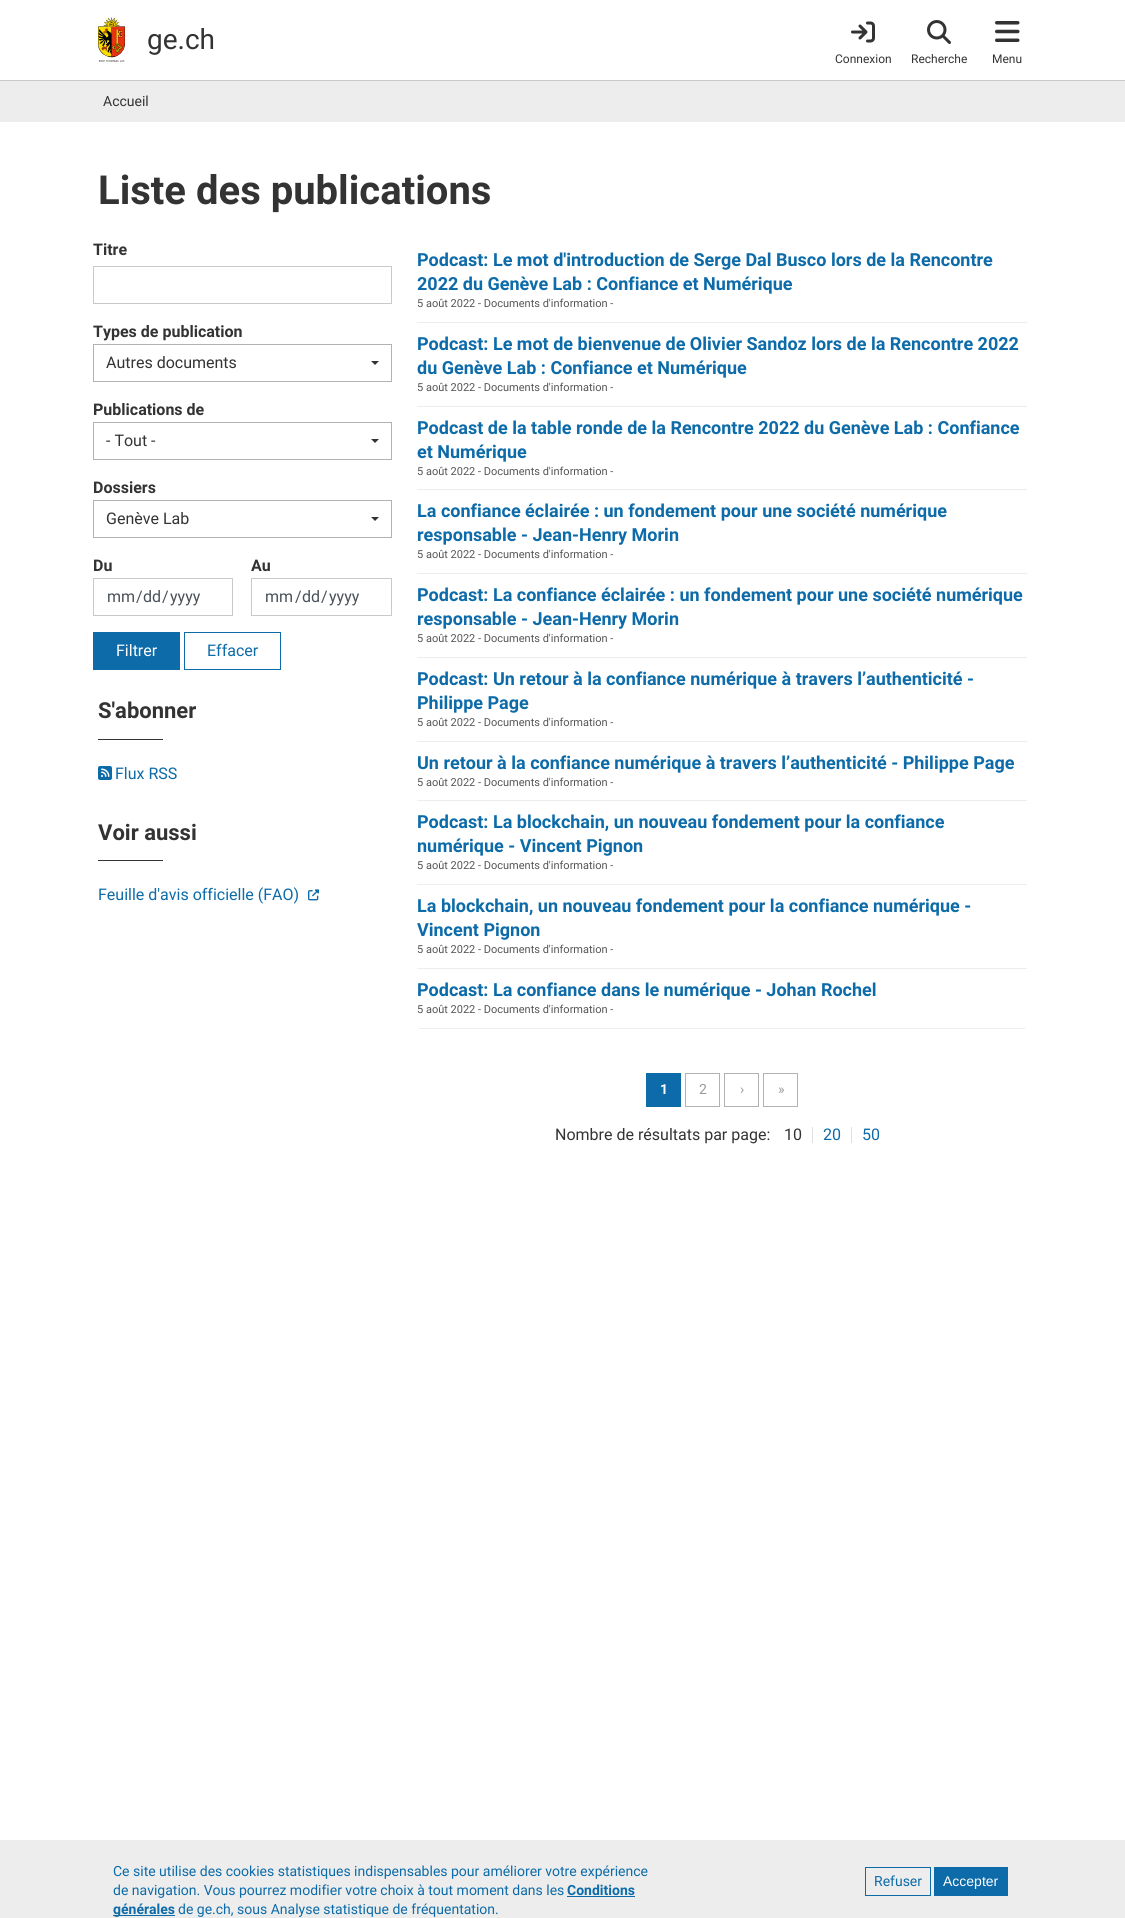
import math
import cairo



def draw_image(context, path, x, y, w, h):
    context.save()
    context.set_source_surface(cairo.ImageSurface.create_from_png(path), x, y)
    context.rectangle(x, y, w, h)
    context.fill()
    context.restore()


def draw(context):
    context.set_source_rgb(1, 1, 1)
    context.paint()
    context.set_source_rgb(201 / 255, 201 / 255, 201 / 255)
    context.rectangle(0, 80, 1125, 1)
    context.fill()
    draw_image(context, "images/1.png", 98, 17, 27, 45)
    draw_image(context, "images/2.png", 851, 21, 24, 22)
    draw_image(context, "images/3.png", 927, 20, 24, 24)
    draw_image(context, "images/4.png", 995, 21, 25, 21)
    context.set_source_rgb(237 / 255, 237 / 255, 237 / 255)
    context.rectangle(0, 81, 1125, 41)
    context.fill()
    context.rectangle(93.5, 266.5, 298, 37)
    context.set_source_rgb(201 / 255, 201 / 255, 201 / 255)
    context.set_line_width(1)
    context.stroke()
    context.rectangle(93.5, 344.5, 298, 37)
    context.set_source_rgb(178 / 255, 178 / 255, 178 / 255)
    context.stroke()
    context.set_source_rgb(51 / 255, 51 / 255, 51 / 255)
    context.new_path()
    context.move_to(371, 361)
    context.line_to(379, 361)
    context.line_to(375, 365)
    context.close_path()
    context.fill()
    context.rectangle(93.5, 422.5, 298, 37)
    context.set_source_rgb(178 / 255, 178 / 255, 178 / 255)
    context.stroke()
    context.set_source_rgb(51 / 255, 51 / 255, 51 / 255)
    context.new_path()
    context.move_to(371, 439)
    context.line_to(379, 439)
    context.line_to(375, 443)
    context.close_path()
    context.fill()
    context.rectangle(93.5, 500.5, 298, 37)
    context.set_source_rgb(178 / 255, 178 / 255, 178 / 255)
    context.stroke()
    context.set_source_rgb(51 / 255, 51 / 255, 51 / 255)
    context.new_path()
    context.move_to(371, 517)
    context.line_to(379, 517)
    context.line_to(375, 521)
    context.close_path()
    context.fill()
    context.rectangle(93.5, 578.5, 139, 37)
    context.set_source_rgb(201 / 255, 201 / 255, 201 / 255)
    context.stroke()
    context.rectangle(251.5, 578.5, 140, 37)
    context.stroke()
    context.set_source_rgb(12 / 255, 107 / 255, 168 / 255)
    context.rectangle(93, 632, 87, 38)
    context.fill()
    context.rectangle(184.5, 632.5, 96, 37)
    context.stroke()
    context.set_source_rgb(51 / 255, 51 / 255, 51 / 255)
    context.rectangle(98, 739, 65, 1)
    context.fill()
    draw_image(context, "images/5.png", 98, 766, 14, 14)
    context.rectangle(98, 860, 65, 1)
    context.fill()
    draw_image(context, "images/6.png", 308, 889, 11, 12)
    context.set_source_rgb(237 / 255, 237 / 255, 237 / 255)
    context.rectangle(417, 322, 610, 1)
    context.fill()
    context.rectangle(417, 406, 610, 1)
    context.fill()
    context.rectangle(417, 489, 610, 1)
    context.fill()
    context.rectangle(417, 573, 610, 1)
    context.fill()
    context.rectangle(417, 657, 610, 1)
    context.fill()
    context.rectangle(417, 741, 610, 1)
    context.fill()
    context.rectangle(417, 800, 610, 1)
    context.fill()
    context.rectangle(417, 884, 610, 1)
    context.fill()
    context.rectangle(417, 968, 610, 1)
    context.fill()
    context.rectangle(419, 1028, 606, 1)
    context.fill()
    context.set_source_rgb(12 / 255, 107 / 255, 168 / 255)
    context.rectangle(646, 1073, 35, 34)
    context.fill()
    context.rectangle(685.5, 1073.5, 34, 33)
    context.set_source_rgb(178 / 255, 178 / 255, 178 / 255)
    context.stroke()
    context.rectangle(724.5, 1073.5, 34, 33)
    context.stroke()
    context.rectangle(763.5, 1073.5, 34, 33)
    context.stroke()
    context.set_source_rgb(225 / 255, 225 / 255, 225 / 255)
    context.rectangle(812, 1127, 1, 16)
    context.fill()
    context.rectangle(851, 1127, 1, 16)
    context.fill()
    context.set_source_rgb(237 / 255, 237 / 255, 237 / 255)
    context.rectangle(0, 1840, 1125, 78)
    context.fill()
    context.set_source_rgb(12 / 255, 107 / 255, 168 / 255)
    context.rectangle(567, 1896, 68, 1)
    context.fill()
    context.rectangle(113, 1915, 62, 1)
    context.fill()
    context.rectangle(865.5, 1867.5, 65, 28)
    context.stroke()
    context.rectangle(934, 1867, 74, 29)
    context.fill()
    context.select_font_face("Roboto")
    context.set_font_size(28)
    context.set_source_rgb(51 / 255, 51 / 255, 51 / 255)
    context.move_to(147, 49)
    context.show_text("ge.ch")
    context.set_font_size(12)
    context.move_to(835, 63)
    context.show_text("Connexion")
    context.move_to(911, 63)
    context.show_text("Recherche")
    context.move_to(992, 63)
    context.show_text("Menu")
    context.set_font_size(14)
    context.move_to(103, 106)
    context.show_text("Accueil")
    context.select_font_face("Roboto", cairo.FontSlant.NORMAL, cairo.FontWeight.BOLD)
    context.set_font_size(40)
    context.move_to(98, 204)
    context.show_text("Liste des publications")
    context.set_font_size(16)
    context.move_to(93, 255)
    context.show_text("Titre")
    context.move_to(93, 337)
    context.show_text("Types de publication")
    context.select_font_face("Roboto")
    context.move_to(106, 368)
    context.show_text("Autres documents")
    context.select_font_face("Roboto", cairo.FontSlant.NORMAL, cairo.FontWeight.BOLD)
    context.move_to(93, 415)
    context.show_text("Publications de")
    context.select_font_face("Roboto")
    context.move_to(106, 446)
    context.show_text("- Tout -")
    context.select_font_face("Roboto", cairo.FontSlant.NORMAL, cairo.FontWeight.BOLD)
    context.move_to(93, 493)
    context.show_text("Dossiers")
    context.select_font_face("Roboto")
    context.move_to(106, 524)
    context.show_text("Genève Lab")
    context.select_font_face("Roboto", cairo.FontSlant.NORMAL, cairo.FontWeight.BOLD)
    context.move_to(93, 571)
    context.show_text("Du")
    context.select_font_face("Roboto")
    context.set_source_rgb(73 / 255, 80 / 255, 87 / 255)
    context.move_to(107, 602)
    context.show_text("mm")
    context.move_to(136, 602)
    context.show_text("/")
    context.move_to(143, 602)
    context.show_text("dd")
    context.move_to(162, 602)
    context.show_text("/")
    context.move_to(170, 602)
    context.show_text("yyyy")
    context.select_font_face("Roboto", cairo.FontSlant.NORMAL, cairo.FontWeight.BOLD)
    context.set_source_rgb(51 / 255, 51 / 255, 51 / 255)
    context.move_to(251, 571)
    context.show_text("Au")
    context.select_font_face("Roboto")
    context.set_source_rgb(73 / 255, 80 / 255, 87 / 255)
    context.move_to(265, 602)
    context.show_text("mm")
    context.move_to(295, 602)
    context.show_text("/")
    context.move_to(302, 602)
    context.show_text("dd")
    context.move_to(321, 602)
    context.show_text("/")
    context.move_to(329, 602)
    context.show_text("yyyy")
    context.set_source_rgb(1, 1, 1)
    context.move_to(116, 656)
    context.show_text("Filtrer")
    context.set_source_rgb(12 / 255, 107 / 255, 168 / 255)
    context.move_to(207, 656)
    context.show_text("Effacer")
    context.select_font_face("Roboto", cairo.FontSlant.NORMAL, cairo.FontWeight.BOLD)
    context.set_font_size(22)
    context.set_source_rgb(51 / 255, 51 / 255, 51 / 255)
    context.move_to(98, 718)
    context.show_text("S'abonner")
    context.select_font_face("Roboto")
    context.set_font_size(16)
    context.set_source_rgb(12 / 255, 107 / 255, 168 / 255)
    context.move_to(115, 779)
    context.show_text("Flux RSS")
    context.select_font_face("Roboto", cairo.FontSlant.NORMAL, cairo.FontWeight.BOLD)
    context.set_font_size(22)
    context.set_source_rgb(51 / 255, 51 / 255, 51 / 255)
    context.move_to(98, 840)
    context.show_text("Voir aussi")
    context.select_font_face("Roboto")
    context.set_font_size(16)
    context.set_source_rgb(12 / 255, 107 / 255, 168 / 255)
    context.move_to(98, 900)
    context.show_text("Feuille d'avis officielle (FAO)")
    context.select_font_face("Roboto", cairo.FontSlant.NORMAL, cairo.FontWeight.BOLD)
    context.set_font_size(18)
    context.move_to(417, 266)
    context.show_text("Podcast: Le mot d'introduction de Serge Dal Busco lors de la Rencontre")
    context.move_to(417, 290)
    context.show_text("2022 du Genève Lab : Confiance et Numérique")
    context.select_font_face("Roboto")
    context.set_font_size(11)
    context.set_source_rgb(85 / 255, 85 / 255, 85 / 255)
    context.move_to(417, 307)
    context.show_text("5 août 2022 - Documents d'information -")
    context.select_font_face("Roboto", cairo.FontSlant.NORMAL, cairo.FontWeight.BOLD)
    context.set_font_size(18)
    context.set_source_rgb(12 / 255, 107 / 255, 168 / 255)
    context.move_to(417, 350)
    context.show_text("Podcast: Le mot de bienvenue de Olivier Sandoz lors de la Rencontre 2022")
    context.move_to(417, 374)
    context.show_text("du Genève Lab : Confiance et Numérique")
    context.select_font_face("Roboto")
    context.set_font_size(11)
    context.set_source_rgb(85 / 255, 85 / 255, 85 / 255)
    context.move_to(417, 391)
    context.show_text("5 août 2022 - Documents d'information -")
    context.select_font_face("Roboto", cairo.FontSlant.NORMAL, cairo.FontWeight.BOLD)
    context.set_font_size(18)
    context.set_source_rgb(12 / 255, 107 / 255, 168 / 255)
    context.move_to(417, 434)
    context.show_text("Podcast de la table ronde de la Rencontre 2022 du Genève Lab : Confiance")
    context.move_to(417, 458)
    context.show_text("et Numérique")
    context.select_font_face("Roboto")
    context.set_font_size(11)
    context.set_source_rgb(85 / 255, 85 / 255, 85 / 255)
    context.move_to(417, 475)
    context.show_text("5 août 2022 - Documents d'information -")
    context.select_font_face("Roboto", cairo.FontSlant.NORMAL, cairo.FontWeight.BOLD)
    context.set_font_size(18)
    context.set_source_rgb(12 / 255, 107 / 255, 168 / 255)
    context.move_to(417, 517)
    context.show_text("La confiance éclairée : un fondement pour une société numérique")
    context.move_to(417, 541)
    context.show_text("responsable - Jean-Henry Morin")
    context.select_font_face("Roboto")
    context.set_font_size(11)
    context.set_source_rgb(85 / 255, 85 / 255, 85 / 255)
    context.move_to(417, 558)
    context.show_text("5 août 2022 - Documents d'information -")
    context.select_font_face("Roboto", cairo.FontSlant.NORMAL, cairo.FontWeight.BOLD)
    context.set_font_size(18)
    context.set_source_rgb(12 / 255, 107 / 255, 168 / 255)
    context.move_to(417, 601)
    context.show_text("Podcast: La confiance éclairée : un fondement pour une société numérique")
    context.move_to(417, 625)
    context.show_text("responsable - Jean-Henry Morin")
    context.select_font_face("Roboto")
    context.set_font_size(11)
    context.set_source_rgb(85 / 255, 85 / 255, 85 / 255)
    context.move_to(417, 642)
    context.show_text("5 août 2022 - Documents d'information -")
    context.select_font_face("Roboto", cairo.FontSlant.NORMAL, cairo.FontWeight.BOLD)
    context.set_font_size(18)
    context.set_source_rgb(12 / 255, 107 / 255, 168 / 255)
    context.move_to(417, 685)
    context.show_text("Podcast: Un retour à la confiance numérique à travers l’authenticité -")
    context.move_to(417, 709)
    context.show_text("Philippe Page")
    context.select_font_face("Roboto")
    context.set_font_size(11)
    context.set_source_rgb(85 / 255, 85 / 255, 85 / 255)
    context.move_to(417, 726)
    context.show_text("5 août 2022 - Documents d'information -")
    context.select_font_face("Roboto", cairo.FontSlant.NORMAL, cairo.FontWeight.BOLD)
    context.set_font_size(18)
    context.set_source_rgb(12 / 255, 107 / 255, 168 / 255)
    context.move_to(417, 769)
    context.show_text("Un retour à la confiance numérique à travers l’authenticité - Philippe Page")
    context.select_font_face("Roboto")
    context.set_font_size(11)
    context.set_source_rgb(85 / 255, 85 / 255, 85 / 255)
    context.move_to(417, 786)
    context.show_text("5 août 2022 - Documents d'information -")
    context.select_font_face("Roboto", cairo.FontSlant.NORMAL, cairo.FontWeight.BOLD)
    context.set_font_size(18)
    context.set_source_rgb(12 / 255, 107 / 255, 168 / 255)
    context.move_to(417, 828)
    context.show_text("Podcast: La blockchain, un nouveau fondement pour la confiance")
    context.move_to(417, 852)
    context.show_text("numérique - Vincent Pignon")
    context.select_font_face("Roboto")
    context.set_font_size(11)
    context.set_source_rgb(85 / 255, 85 / 255, 85 / 255)
    context.move_to(417, 869)
    context.show_text("5 août 2022 - Documents d'information -")
    context.select_font_face("Roboto", cairo.FontSlant.NORMAL, cairo.FontWeight.BOLD)
    context.set_font_size(18)
    context.set_source_rgb(12 / 255, 107 / 255, 168 / 255)
    context.move_to(417, 912)
    context.show_text("La blockchain, un nouveau fondement pour la confiance numérique -")
    context.move_to(417, 936)
    context.show_text("Vincent Pignon")
    context.select_font_face("Roboto")
    context.set_font_size(11)
    context.set_source_rgb(85 / 255, 85 / 255, 85 / 255)
    context.move_to(417, 953)
    context.show_text("5 août 2022 - Documents d'information -")
    context.select_font_face("Roboto", cairo.FontSlant.NORMAL, cairo.FontWeight.BOLD)
    context.set_font_size(18)
    context.set_source_rgb(12 / 255, 107 / 255, 168 / 255)
    context.move_to(417, 996)
    context.show_text("Podcast: La confiance dans le numérique - Johan Rochel")
    context.select_font_face("Roboto")
    context.set_font_size(11)
    context.set_source_rgb(85 / 255, 85 / 255, 85 / 255)
    context.move_to(417, 1013)
    context.show_text("5 août 2022 - Documents d'information -")
    context.select_font_face("Roboto", cairo.FontSlant.NORMAL, cairo.FontWeight.BOLD)
    context.set_font_size(14)
    context.set_source_rgb(1, 1, 1)
    context.move_to(660, 1094)
    context.show_text("1")
    context.select_font_face("Roboto")
    context.set_source_rgb(153 / 255, 153 / 255, 153 / 255)
    context.move_to(699, 1094)
    context.show_text("2")
    context.move_to(740, 1094)
    context.show_text("›")
    context.move_to(778, 1094)
    context.show_text("»")
    context.set_font_size(16)
    context.set_source_rgb(51 / 255, 51 / 255, 51 / 255)
    context.move_to(555, 1140)
    context.show_text("Nombre de résultats par page:")
    context.move_to(784, 1140)
    context.show_text("10")
    context.set_source_rgb(12 / 255, 107 / 255, 168 / 255)
    context.move_to(823, 1140)
    context.show_text("20")
    context.move_to(862, 1140)
    context.show_text("50")
    context.set_font_size(14)
    context.move_to(113, 1876)
    context.show_text("Ce site utilise des cookies statistiques indispensables pour améliorer votre expérience")
    context.move_to(113, 1895)
    context.show_text("de navigation. Vous pourrez modifier votre choix à tout moment dans les")
    context.select_font_face("Roboto", cairo.FontSlant.NORMAL, cairo.FontWeight.BOLD)
    context.move_to(567, 1895)
    context.show_text("Conditions")
    context.move_to(113, 1914)
    context.show_text("générales")
    context.select_font_face("Roboto")
    context.move_to(178, 1914)
    context.show_text("de ge.ch, sous Analyse statistique de fréquentation.")
    context.move_to(874, 1886)
    context.show_text("Refuser")
    context.select_font_face("Liberation Sans")
    context.set_source_rgb(1, 1, 1)
    context.move_to(943, 1886)
    context.show_text("Accepter")


surface = cairo.ImageSurface(cairo.Format.RGB24, 1125, 1918)
context = cairo.Context(surface)
options = cairo.FontOptions()
options.set_hint_metrics(cairo.HintMetrics.OFF)
options.set_hint_style(cairo.HintStyle.NONE)
context.set_font_options(options)
context.set_miter_limit(4)
draw(context)
surface.write_to_png("out.png")
